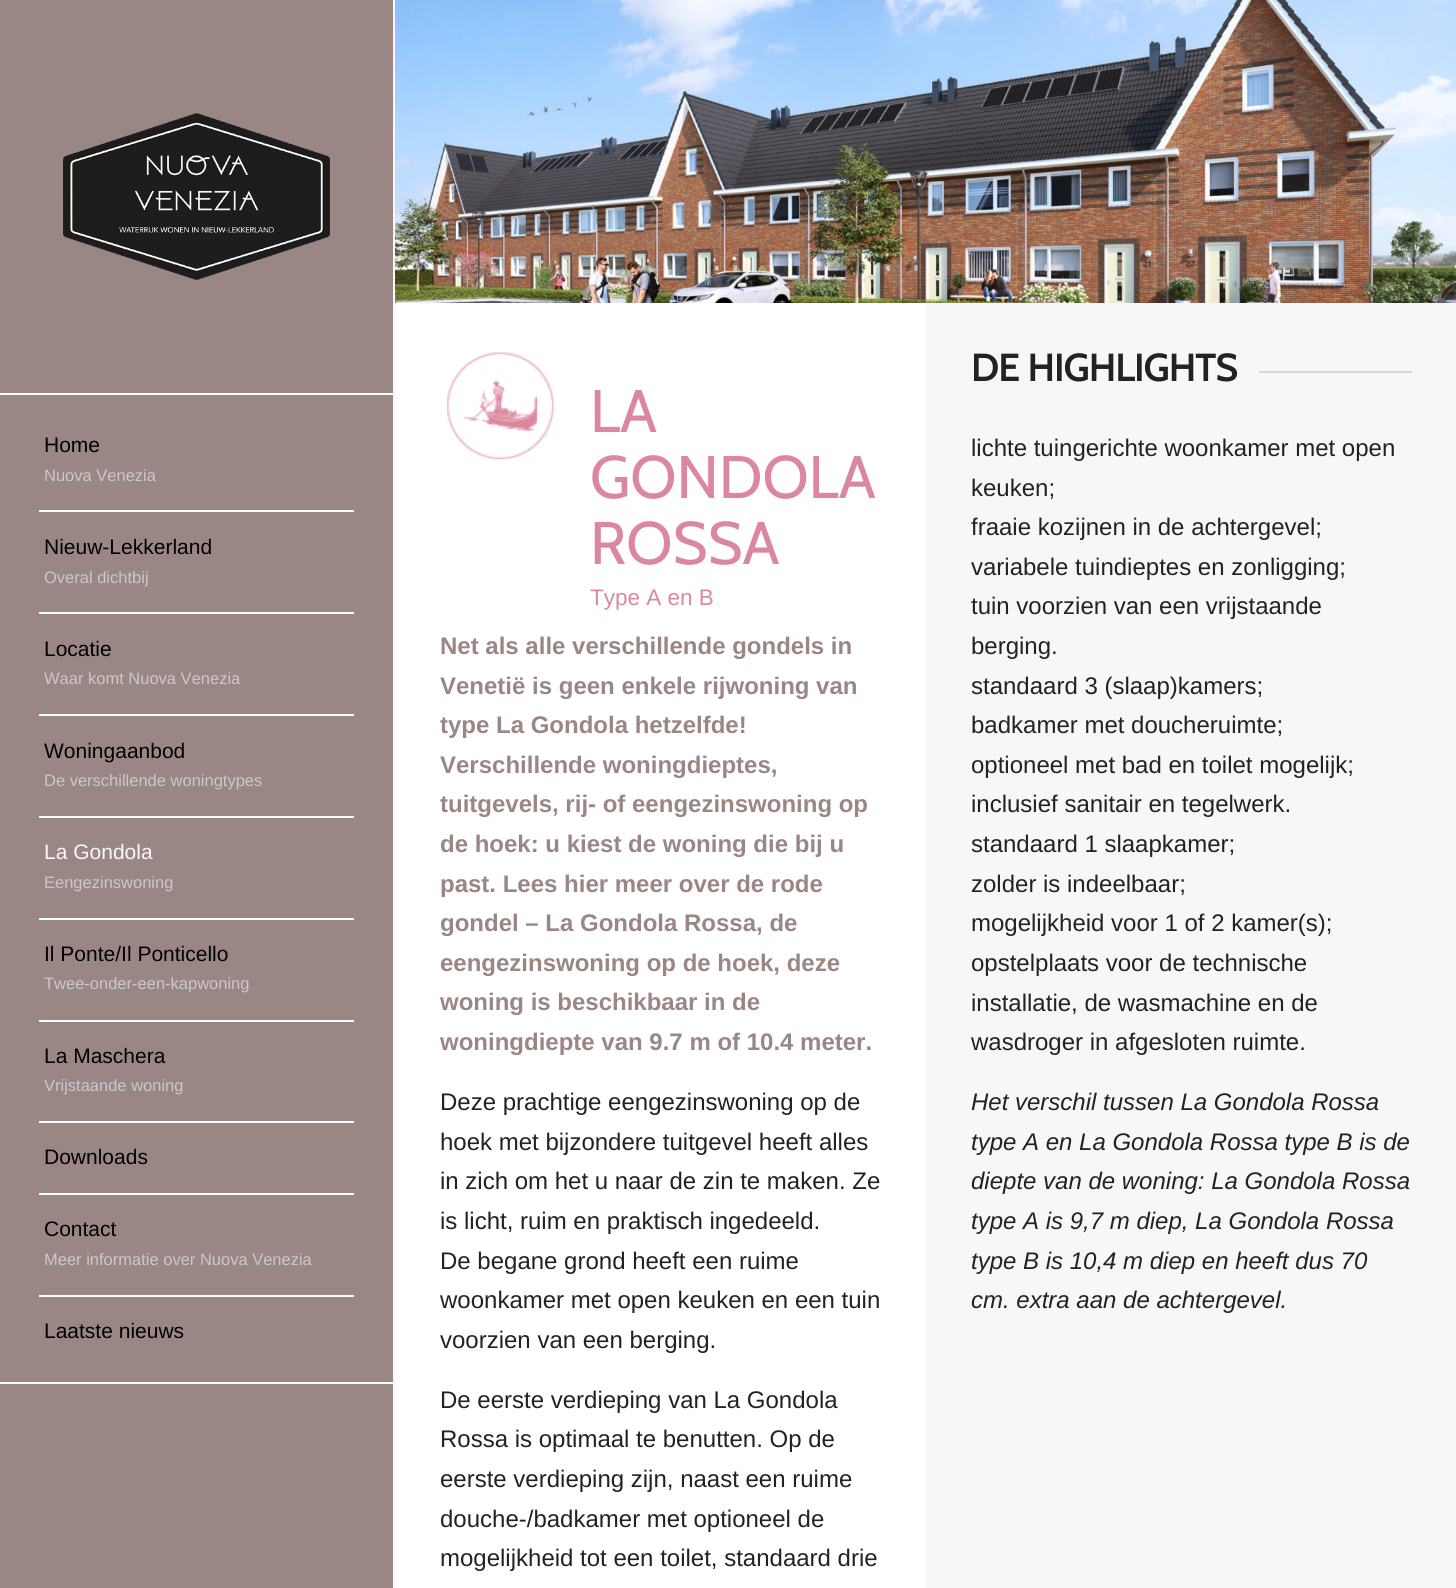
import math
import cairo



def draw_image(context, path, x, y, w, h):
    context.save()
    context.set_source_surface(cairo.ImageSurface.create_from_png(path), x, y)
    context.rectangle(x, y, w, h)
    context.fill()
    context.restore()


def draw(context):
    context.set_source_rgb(154 / 255, 135 / 255, 133 / 255)
    context.paint()
    context.set_source_rgb(252 / 255, 252 / 255, 252 / 255)
    context.rectangle(0, 1382, 393, 2)
    context.fill()
    context.rectangle(0, 393, 393, 2)
    context.fill()
    draw_image(context, "images/1.png", 63, 113, 267, 167)
    context.rectangle(39, 510, 315, 2)
    context.fill()
    context.rectangle(39, 612, 315, 2)
    context.fill()
    context.rectangle(39, 714, 315, 2)
    context.fill()
    context.rectangle(39, 816, 315, 2)
    context.fill()
    context.rectangle(39, 918, 315, 2)
    context.fill()
    context.rectangle(39, 1020, 315, 2)
    context.fill()
    context.rectangle(39, 1121, 315, 2)
    context.fill()
    context.rectangle(39, 1193, 315, 2)
    context.fill()
    context.rectangle(39, 1295, 315, 2)
    context.fill()
    context.set_source_rgb(248 / 255, 248 / 255, 248 / 255)
    context.rectangle(393, 0, 2, 1588)
    context.fill()
    draw_image(context, "images/2.png", 395, 0, 1061, 303)
    context.set_source_rgb(1, 1, 1)
    context.rectangle(395, 303, 531, 1285)
    context.fill()
    draw_image(context, "images/3.png", 446, 352, 108, 108)
    context.set_source_rgb(247 / 255, 247 / 255, 247 / 255)
    context.rectangle(926, 303, 530, 1285)
    context.fill()
    context.set_source_rgb(215 / 255, 215 / 255, 215 / 255)
    context.rectangle(1259, 371, 153, 2)
    context.fill()
    context.select_font_face("Liberation Sans")
    context.set_font_size(21)
    context.set_source_rgb(0, 0, 0)
    context.move_to(44, 452)
    context.show_text("Home")
    context.set_font_size(16.5)
    context.set_source_rgb(201 / 255, 201 / 255, 201 / 255)
    context.move_to(44, 481)
    context.show_text("Nuova Venezia")
    context.set_font_size(21)
    context.set_source_rgb(0, 0, 0)
    context.move_to(44, 554)
    context.show_text("Nieuw-Lekkerland")
    context.set_font_size(16.5)
    context.set_source_rgb(201 / 255, 201 / 255, 201 / 255)
    context.move_to(44, 583)
    context.show_text("Overal dichtbij")
    context.set_font_size(21)
    context.set_source_rgb(0, 0, 0)
    context.move_to(44, 656)
    context.show_text("Locatie")
    context.set_font_size(16.5)
    context.set_source_rgb(201 / 255, 201 / 255, 201 / 255)
    context.move_to(44, 684)
    context.show_text("Waar komt Nuova Venezia")
    context.set_font_size(21)
    context.set_source_rgb(0, 0, 0)
    context.move_to(44, 758)
    context.show_text("Woningaanbod")
    context.set_font_size(16.5)
    context.set_source_rgb(201 / 255, 201 / 255, 201 / 255)
    context.move_to(44, 786)
    context.show_text("De verschillende woningtypes")
    context.set_font_size(21)
    context.set_source_rgb(248 / 255, 248 / 255, 248 / 255)
    context.move_to(44, 859)
    context.show_text("La Gondola")
    context.set_font_size(16.5)
    context.set_source_rgb(201 / 255, 201 / 255, 201 / 255)
    context.move_to(44, 888)
    context.show_text("Eengezinswoning")
    context.set_font_size(21)
    context.set_source_rgb(0, 0, 0)
    context.move_to(44, 961)
    context.show_text("Il Ponte/Il Ponticello")
    context.set_font_size(16.5)
    context.set_source_rgb(201 / 255, 201 / 255, 201 / 255)
    context.move_to(44, 989)
    context.show_text("Twee-onder-een-kapwoning")
    context.set_font_size(21)
    context.set_source_rgb(0, 0, 0)
    context.move_to(44, 1063)
    context.show_text("La Maschera")
    context.set_font_size(16.5)
    context.set_source_rgb(201 / 255, 201 / 255, 201 / 255)
    context.move_to(44, 1091)
    context.show_text("Vrijstaande woning")
    context.set_font_size(21)
    context.set_source_rgb(0, 0, 0)
    context.move_to(44, 1164)
    context.show_text("Downloads")
    context.move_to(44, 1236)
    context.show_text("Contact")
    context.set_font_size(16.5)
    context.set_source_rgb(201 / 255, 201 / 255, 201 / 255)
    context.move_to(44, 1265)
    context.show_text("Meer informatie over Nuova Venezia")
    context.set_font_size(21)
    context.set_source_rgb(0, 0, 0)
    context.move_to(44, 1338)
    context.show_text("Laatste nieuws")
    context.select_font_face("Cabin")
    context.set_font_size(60)
    context.set_source_rgb(218 / 255, 135 / 255, 159 / 255)
    context.move_to(590, 432)
    context.show_text("LA")
    context.move_to(590, 498)
    context.show_text("GONDOLA")
    context.move_to(590, 564)
    context.show_text("ROSSA")
    context.select_font_face("Liberation Sans")
    context.set_font_size(22.5)
    context.move_to(590, 605)
    context.show_text("Type A en B")
    context.select_font_face("Liberation Sans", cairo.FontSlant.NORMAL, cairo.FontWeight.BOLD)
    context.set_font_size(24)
    context.set_source_rgb(154 / 255, 135 / 255, 133 / 255)
    context.move_to(440, 654)
    context.show_text("Net als alle verschillende gondels in")
    context.move_to(440, 694)
    context.show_text("Venetië is geen enkele rijwoning van")
    context.move_to(440, 733)
    context.show_text("type La Gondola hetzelfde!")
    context.move_to(440, 773)
    context.show_text("Verschillende woningdieptes,")
    context.move_to(440, 812)
    context.show_text("tuitgevels, rij- of eengezinswoning op")
    context.move_to(440, 852)
    context.show_text("de hoek: u kiest de woning die bij u")
    context.move_to(440, 892)
    context.show_text("past. Lees hier meer over de rode")
    context.move_to(440, 931)
    context.show_text("gondel – La Gondola Rossa, de")
    context.move_to(440, 971)
    context.show_text("eengezinswoning op de hoek, deze")
    context.move_to(440, 1010)
    context.show_text("woning is beschikbaar in de")
    context.move_to(440, 1050)
    context.show_text("woningdiepte van 9.7 m of 10.4 meter.")
    context.select_font_face("Liberation Sans")
    context.set_source_rgb(34 / 255, 34 / 255, 34 / 255)
    context.move_to(440, 1110)
    context.show_text("Deze prachtige eengezinswoning op de")
    context.move_to(440, 1150)
    context.show_text("hoek met bijzondere tuitgevel heeft alles")
    context.move_to(440, 1189)
    context.show_text("in zich om het u naar de zin te maken. Ze")
    context.move_to(440, 1229)
    context.show_text("is licht, ruim en praktisch ingedeeld.")
    context.move_to(440, 1269)
    context.show_text("De begane grond heeft een ruime")
    context.move_to(440, 1308)
    context.show_text("woonkamer met open keuken en een tuin")
    context.move_to(440, 1348)
    context.show_text("voorzien van een berging.")
    context.move_to(440, 1408)
    context.show_text("De eerste verdieping van La Gondola")
    context.move_to(440, 1447)
    context.show_text("Rossa is optimaal te benutten. Op de")
    context.move_to(440, 1487)
    context.show_text("eerste verdieping zijn, naast een ruime")
    context.move_to(440, 1527)
    context.show_text("douche-/badkamer met optioneel de")
    context.move_to(440, 1566)
    context.show_text("mogelijkheid tot een toilet, standaard drie")
    context.select_font_face("Cabin", cairo.FontSlant.NORMAL, cairo.FontWeight.BOLD)
    context.set_font_size(37.5)
    context.move_to(971, 381)
    context.show_text("DE HIGHLIGHTS")
    context.select_font_face("Liberation Sans")
    context.set_font_size(24)
    context.move_to(971, 456)
    context.show_text("lichte tuingerichte woonkamer met open")
    context.move_to(971, 496)
    context.show_text("keuken;")
    context.move_to(971, 535)
    context.show_text("fraaie kozijnen in de achtergevel;")
    context.move_to(971, 575)
    context.show_text("variabele tuindieptes en zonligging;")
    context.move_to(971, 614)
    context.show_text("tuin voorzien van een vrijstaande")
    context.move_to(971, 654)
    context.show_text("berging.")
    context.move_to(971, 694)
    context.show_text("standaard 3 (slaap)kamers;")
    context.move_to(971, 733)
    context.show_text("badkamer met doucheruimte;")
    context.move_to(971, 773)
    context.show_text("optioneel met bad en toilet mogelijk;")
    context.move_to(971, 812)
    context.show_text("inclusief sanitair en tegelwerk.")
    context.move_to(971, 852)
    context.show_text("standaard 1 slaapkamer;")
    context.move_to(971, 892)
    context.show_text("zolder is indeelbaar;")
    context.move_to(971, 931)
    context.show_text("mogelijkheid voor 1 of 2 kamer(s);")
    context.move_to(971, 971)
    context.show_text("opstelplaats voor de technische")
    context.move_to(971, 1011)
    context.show_text("installatie, de wasmachine en de")
    context.move_to(971, 1050)
    context.show_text("wasdroger in afgesloten ruimte.")
    context.select_font_face("Liberation Sans", cairo.FontSlant.ITALIC)
    context.move_to(971, 1110)
    context.show_text("Het verschil tussen La Gondola Rossa")
    context.move_to(971, 1150)
    context.show_text("type A en La Gondola Rossa type B is de")
    context.move_to(971, 1189)
    context.show_text("diepte van de woning: La Gondola Rossa")
    context.move_to(971, 1229)
    context.show_text("type A is 9,7 m diep, La Gondola Rossa")
    context.move_to(971, 1269)
    context.show_text("type B is 10,4 m diep en heeft dus 70")
    context.move_to(971, 1308)
    context.show_text("cm. extra aan de achtergevel.")


surface = cairo.ImageSurface(cairo.Format.RGB24, 1456, 1588)
context = cairo.Context(surface)
options = cairo.FontOptions()
options.set_hint_metrics(cairo.HintMetrics.OFF)
options.set_hint_style(cairo.HintStyle.NONE)
context.set_font_options(options)
context.set_miter_limit(4)
draw(context)
surface.write_to_png("out.png")
